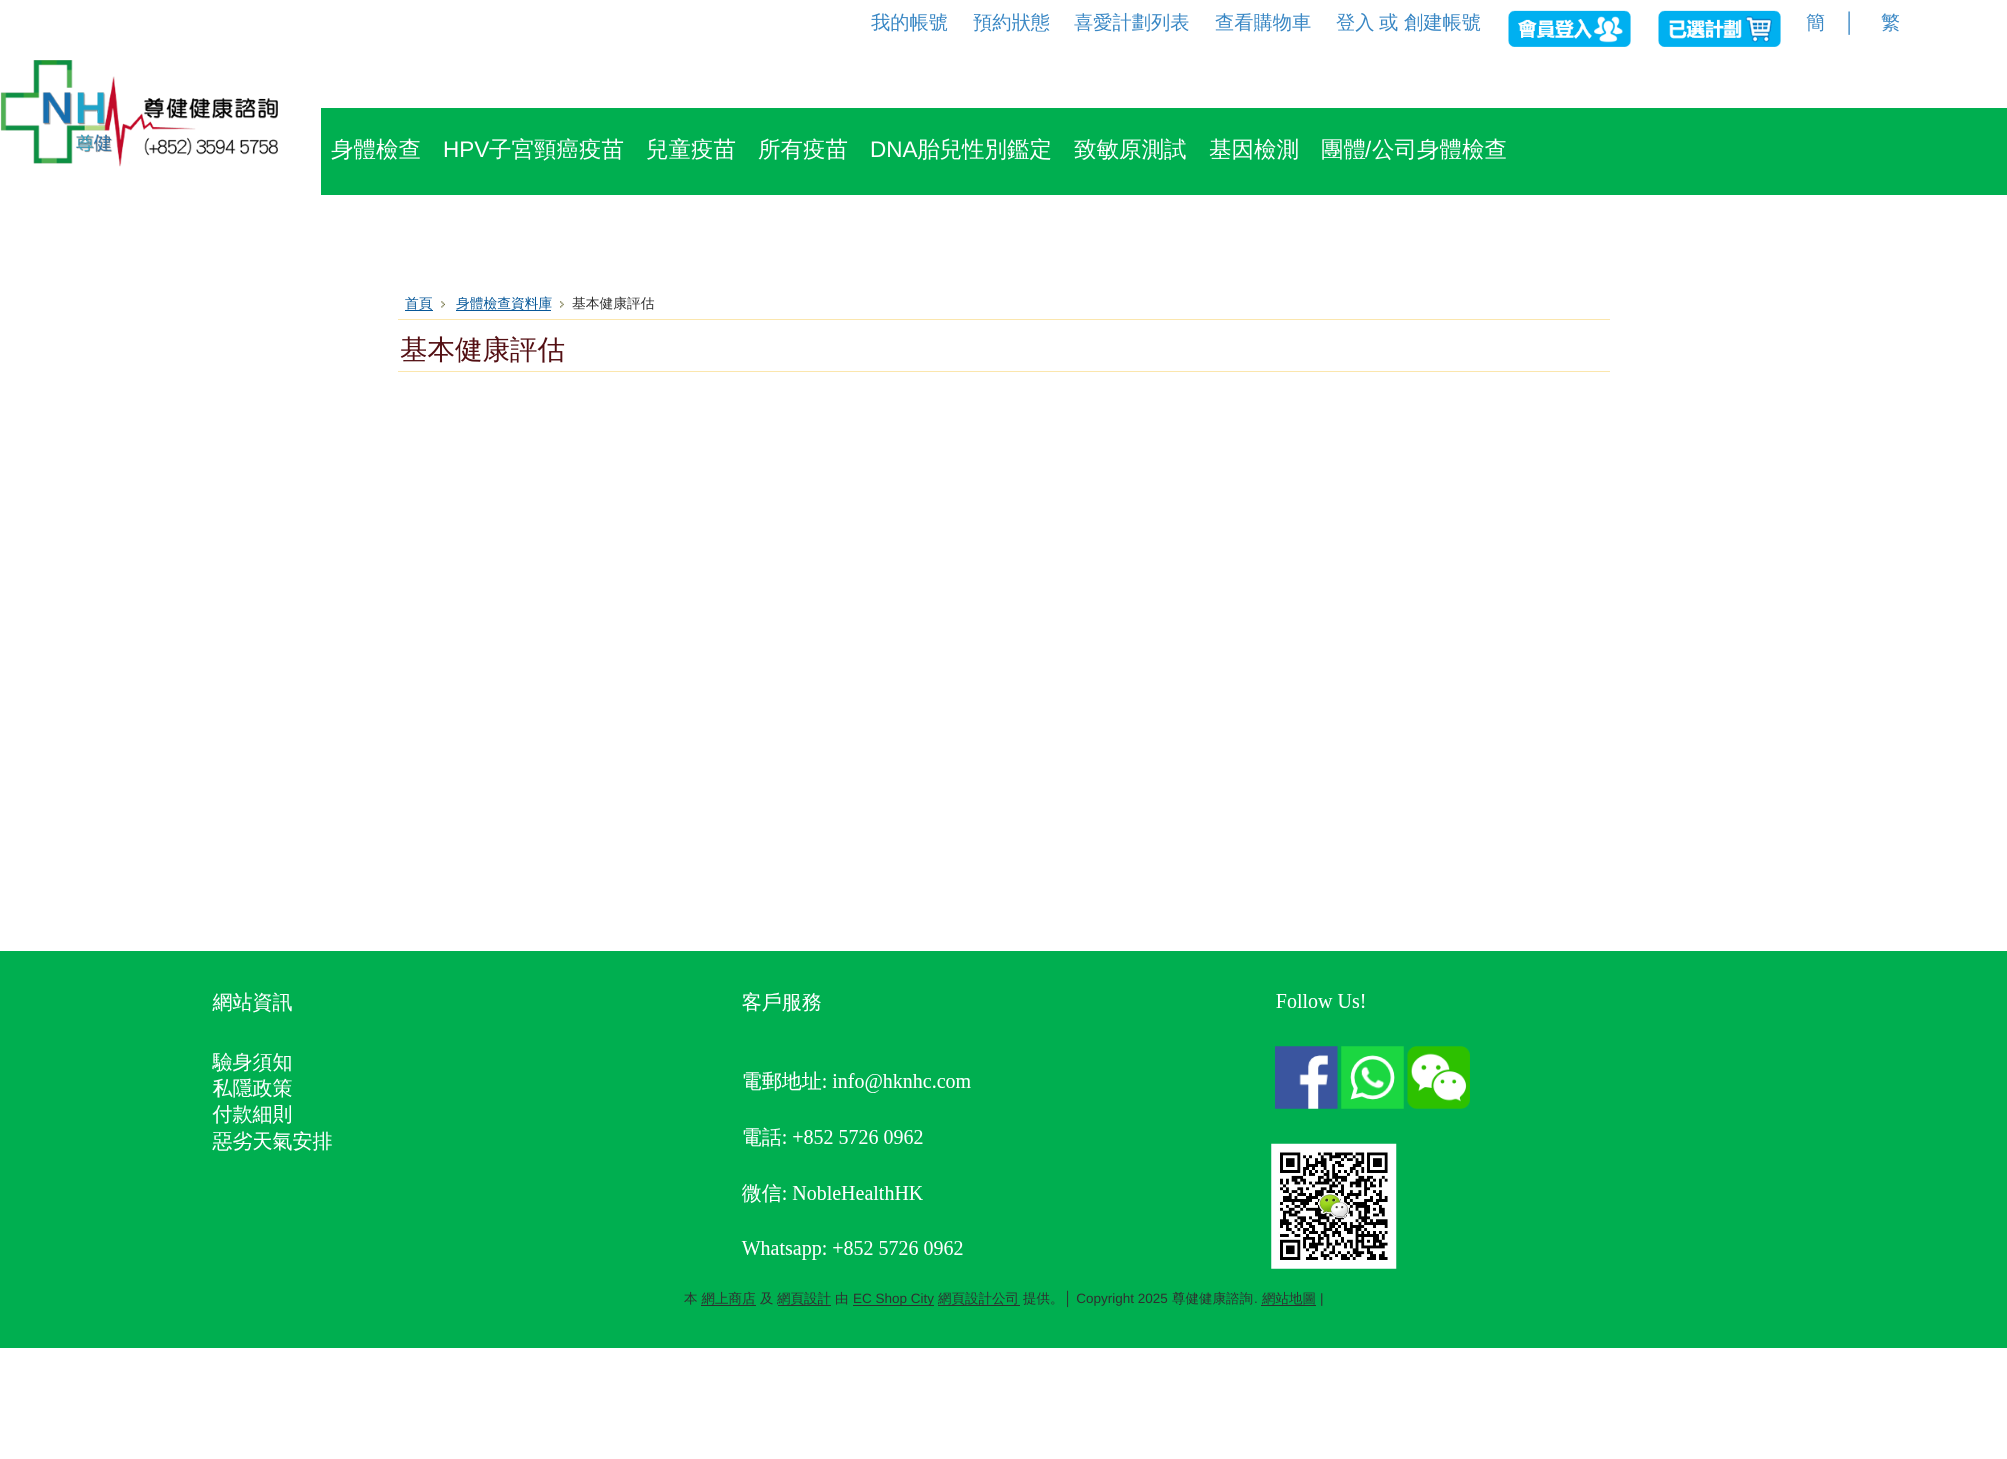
import math
import cairo



def draw_image(context, path, x, y, w, h):
    context.save()
    context.set_source_surface(cairo.ImageSurface.create_from_png(path), x, y)
    context.rectangle(x, y, w, h)
    context.fill()
    context.restore()


def draw(context):
    context.set_source_rgb(1, 1, 1)
    context.paint()
    draw_image(context, "images/1.png", 1508, 10, 123, 37)
    draw_image(context, "images/2.png", 1658, 10, 123, 37)
    draw_image(context, "images/3.png", 0, 60, 278, 107)
    context.set_source_rgb(0, 175 / 255, 80 / 255)
    context.rectangle(321, 108, 1686, 87)
    context.fill()
    context.set_source_rgb(251 / 255, 230 / 255, 173 / 255)
    context.rectangle(398, 319, 1212, 1)
    context.fill()
    context.set_source_rgb(7 / 255, 88 / 255, 153 / 255)
    context.rectangle(405, 310, 28, 1)
    context.fill()
    draw_image(context, "images/4.png", 441, 301, 4, 7)
    context.rectangle(456, 310, 95, 1)
    context.fill()
    draw_image(context, "images/5.png", 560, 301, 4, 7)
    context.set_source_rgb(251 / 255, 230 / 255, 173 / 255)
    context.rectangle(398, 371, 1212, 1)
    context.fill()
    context.set_source_rgb(0, 175 / 255, 80 / 255)
    context.rectangle(0, 951, 2007, 397)
    context.fill()
    draw_image(context, "images/6.png", 212, 992, 1258, 277)
    context.set_source_rgb(47 / 255, 47 / 255, 47 / 255)
    context.rectangle(778, 1305, 53, 1)
    context.fill()
    context.rectangle(853, 1305, 81, 1)
    context.fill()
    context.rectangle(938, 1305, 82, 1)
    context.fill()
    context.rectangle(1261, 1305, 55, 1)
    context.fill()
    context.rectangle(701, 1305, 55, 1)
    context.fill()
    context.select_font_face("WenQuanYi Zen Hei Medium")
    context.set_font_size(19.25)
    context.set_source_rgb(57 / 255, 135 / 255, 196 / 255)
    context.move_to(871, 29)
    context.show_text("我的帳號")
    context.move_to(973, 29)
    context.show_text("預約狀態")
    context.move_to(1074, 29)
    context.show_text("喜愛計劃列表")
    context.move_to(1215, 29)
    context.show_text("查看購物車")
    context.move_to(1336, 29)
    context.show_text("登入")
    context.move_to(1379, 29)
    context.show_text("或")
    context.move_to(1404, 29)
    context.show_text("創建帳號")
    context.move_to(1806, 29)
    context.show_text("簡")
    context.select_font_face("Liberation Sans")
    context.move_to(1844, 29)
    context.show_text("│")
    context.select_font_face("WenQuanYi Zen Hei Medium")
    context.move_to(1881, 29)
    context.show_text("繁")
    context.set_font_size(22.5)
    context.set_source_rgb(1, 1, 1)
    context.move_to(331, 157)
    context.show_text("身體檢查")
    context.select_font_face("Liberation Sans")
    context.move_to(443, 157)
    context.show_text("HPV")
    context.select_font_face("WenQuanYi Zen Hei Medium")
    context.move_to(489, 157)
    context.show_text("子宮頸癌疫苗")
    context.move_to(646, 157)
    context.show_text("兒童疫苗")
    context.move_to(758, 157)
    context.show_text("所有疫苗")
    context.select_font_face("Liberation Sans")
    context.move_to(870, 157)
    context.show_text("DNA")
    context.select_font_face("WenQuanYi Zen Hei Medium")
    context.move_to(917, 157)
    context.show_text("胎兒性別鑑定")
    context.move_to(1074, 157)
    context.show_text("致敏原測試")
    context.move_to(1209, 157)
    context.show_text("基因檢測")
    context.move_to(1321, 157)
    context.show_text("團體")
    context.select_font_face("Liberation Sans")
    context.move_to(1365, 157)
    context.show_text("/")
    context.select_font_face("WenQuanYi Zen Hei Medium")
    context.move_to(1372, 157)
    context.show_text("公司身體檢查")
    context.set_font_size(13.75)
    context.set_source_rgb(7 / 255, 88 / 255, 153 / 255)
    context.move_to(405, 308)
    context.show_text("首頁")
    context.move_to(456, 308)
    context.show_text("身體檢查資料庫")
    context.set_source_rgb(47 / 255, 47 / 255, 47 / 255)
    context.move_to(572, 308)
    context.show_text("基本健康評估")
    context.set_font_size(27.5)
    context.set_source_rgb(83 / 255, 15 / 255, 19 / 255)
    context.move_to(400, 359)
    context.show_text("基本健康評估")
    context.set_font_size(13.5)
    context.set_source_rgb(47 / 255, 47 / 255, 47 / 255)
    context.move_to(684, 1303)
    context.show_text("本 網上商店")
    context.move_to(760, 1303)
    context.show_text("及")
    context.move_to(777, 1303)
    context.show_text("網頁設計")
    context.move_to(835, 1303)
    context.show_text("由")
    context.select_font_face("Liberation Sans")
    context.move_to(853, 1303)
    context.show_text("EC Shop City")
    context.select_font_face("WenQuanYi Zen Hei Medium")
    context.move_to(938, 1303)
    context.show_text("網頁設計公司")
    context.move_to(1023, 1303)
    context.show_text("提供。")
    context.select_font_face("Liberation Sans")
    context.move_to(1064, 1303)
    context.show_text("│ Copyright 2025")
    context.select_font_face("WenQuanYi Zen Hei Medium")
    context.move_to(1172, 1303)
    context.show_text("尊健健康諮詢")
    context.select_font_face("Liberation Sans")
    context.move_to(1254, 1303)
    context.show_text(".")
    context.select_font_face("WenQuanYi Zen Hei Medium")
    context.move_to(1262, 1303)
    context.show_text("網站地圖")
    context.select_font_face("Liberation Sans")
    context.move_to(1320, 1303)
    context.show_text("|")


surface = cairo.ImageSurface(cairo.Format.RGB24, 2007, 1459)
context = cairo.Context(surface)
options = cairo.FontOptions()
options.set_hint_metrics(cairo.HintMetrics.OFF)
options.set_hint_style(cairo.HintStyle.NONE)
context.set_font_options(options)
context.set_miter_limit(4)
draw(context)
surface.write_to_png("out.png")
